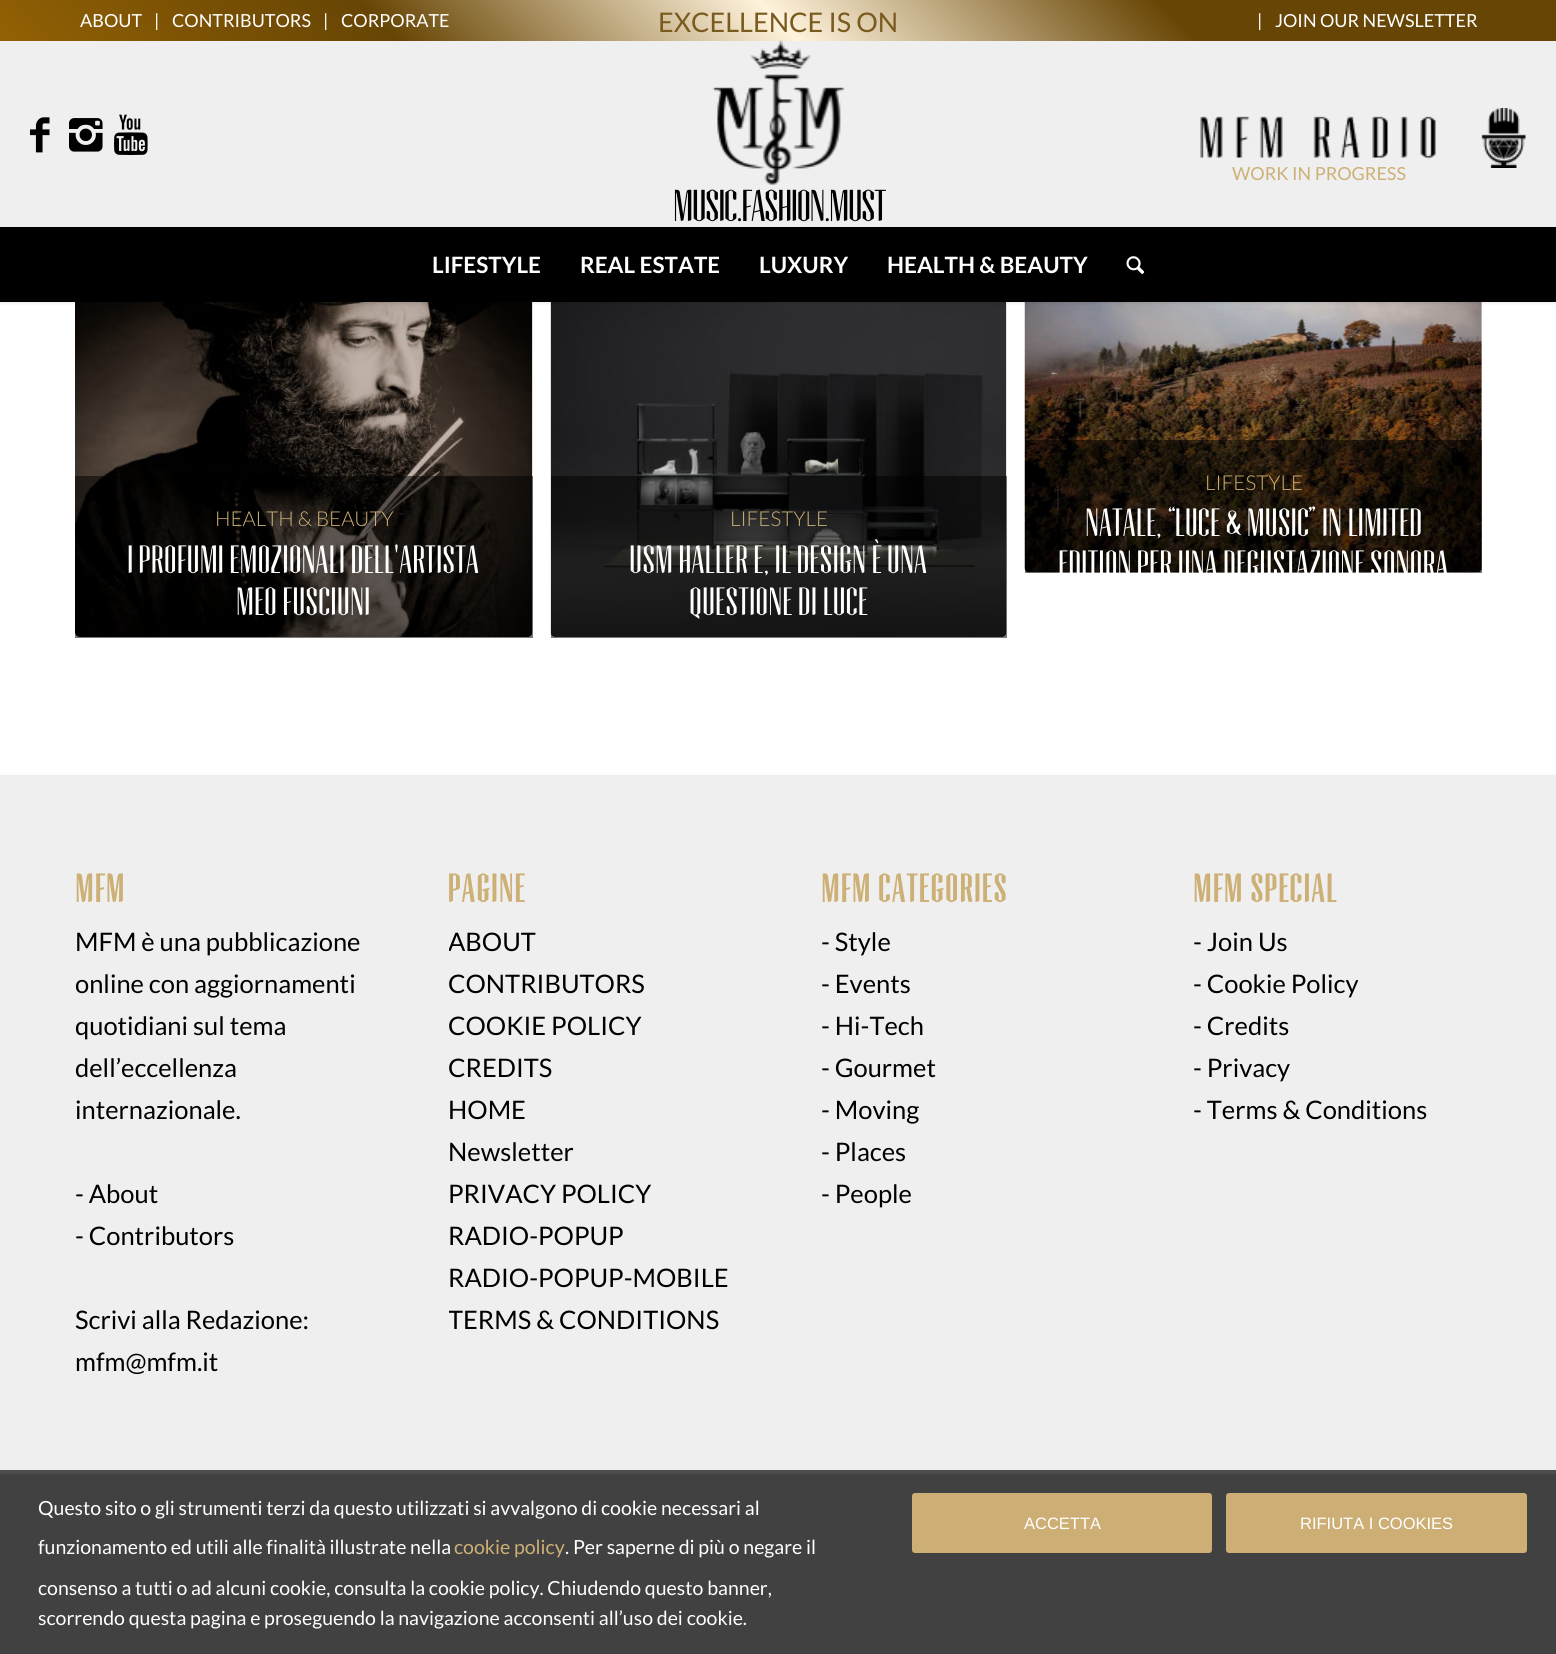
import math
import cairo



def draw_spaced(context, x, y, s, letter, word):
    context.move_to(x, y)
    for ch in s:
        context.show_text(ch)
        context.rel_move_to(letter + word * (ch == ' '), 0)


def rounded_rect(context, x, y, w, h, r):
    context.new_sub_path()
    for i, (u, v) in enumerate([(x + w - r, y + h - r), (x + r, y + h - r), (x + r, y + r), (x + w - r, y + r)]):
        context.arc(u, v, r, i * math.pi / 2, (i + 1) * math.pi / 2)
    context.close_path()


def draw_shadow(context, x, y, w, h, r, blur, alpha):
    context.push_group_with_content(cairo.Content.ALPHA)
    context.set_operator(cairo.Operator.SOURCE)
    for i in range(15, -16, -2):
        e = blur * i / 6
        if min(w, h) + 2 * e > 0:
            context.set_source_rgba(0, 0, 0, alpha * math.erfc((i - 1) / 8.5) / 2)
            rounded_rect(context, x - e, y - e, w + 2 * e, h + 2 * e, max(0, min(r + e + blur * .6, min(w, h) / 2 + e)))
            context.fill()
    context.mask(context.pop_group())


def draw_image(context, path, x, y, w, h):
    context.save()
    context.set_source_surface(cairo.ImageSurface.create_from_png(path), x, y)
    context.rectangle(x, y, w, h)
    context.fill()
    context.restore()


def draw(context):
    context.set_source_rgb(65 / 255, 65 / 255, 65 / 255)
    context.paint()
    context.set_source_rgb(1, 1, 1)
    context.rectangle(0, 302, 1556, 471)
    context.fill()
    draw_image(context, "images/7.png", 75, 302, 458, 335)
    draw_image(context, "images/8.png", 550, 302, 457, 335)
    draw_image(context, "images/9.png", 1024, 302, 458, 271)
    context.set_source_rgb(0, 0, 0)
    draw_shadow(context, -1, -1, 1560, 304, 0, 1.5, 0.1)
    gradient = cairo.LinearGradient(379, 420, 1178, -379)
    gradient.add_color_stop_rgba(0, 146 / 255, 97 / 255, 4 / 255, 1)
    gradient.add_color_stop_rgba(0.25, 103 / 255, 69 / 255, 4 / 255, 1)
    gradient.add_color_stop_rgba(0.5, 1, 243 / 255, 220 / 255, 1)
    gradient.add_color_stop_rgba(0.75, 103 / 255, 69 / 255, 4 / 255, 1)
    gradient.add_color_stop_rgba(1, 103 / 255, 69 / 255, 4 / 255, 1)
    context.set_source(gradient)
    context.rectangle(0, 0, 1556, 41)
    context.fill()
    context.set_source_rgb(239 / 255, 239 / 255, 239 / 255)
    context.rectangle(0, 41, 1556, 186)
    context.fill()
    draw_image(context, "images/1.png", 30, 117, 20, 36)
    draw_image(context, "images/2.png", 69, 118, 34, 34)
    draw_image(context, "images/3.png", 114, 114, 34, 41)
    draw_image(context, "images/4.png", 1200, 108, 326, 60)
    draw_image(context, "images/5.png", 712, 40, 133, 145)
    context.set_source_rgb(0, 0, 0)
    context.rectangle(0, 227, 1556, 75)
    context.fill()
    draw_image(context, "images/6.png", 1126, 256, 19, 18)
    context.set_source_rgb(239 / 255, 239 / 255, 239 / 255)
    context.rectangle(0, 775, 1556, 695)
    context.fill()
    context.set_source_rgb(77 / 255, 77 / 255, 77 / 255)
    context.rectangle(0, 1470, 1556, 4)
    context.fill()
    context.set_source_rgba(0, 0, 0, 0.52)
    context.rectangle(75, 476, 458, 162)
    context.fill()
    context.rectangle(551, 476, 456, 162)
    context.fill()
    context.rectangle(1025, 440, 457, 133)
    context.fill()
    context.set_source_rgb(252 / 255, 252 / 255, 252 / 255)
    context.rectangle(0, 773, 1556, 2)
    context.fill()
    context.set_source_rgb(205 / 255, 175 / 255, 117 / 255)
    rounded_rect(context, 912, 1493, 300, 60, 3)
    context.fill()
    rounded_rect(context, 1226, 1493, 301, 60, 3)
    context.fill()
    context.select_font_face("Lato")
    context.set_font_size(18)
    context.set_source_rgb(1, 1, 1)
    context.move_to(80, 27)
    context.show_text("ABOUT")
    context.move_to(154, 27)
    context.show_text("|")
    context.move_to(172, 27)
    context.show_text("CONTRIBUTORS")
    context.move_to(323, 27)
    context.show_text("|")
    context.move_to(341, 27)
    context.show_text("CORPORATE")
    context.set_font_size(27)
    context.set_source_rgb(122 / 255, 91 / 255, 31 / 255)
    context.move_to(658, 32)
    context.show_text("EXCELLENCE IS ON")
    context.set_font_size(18)
    context.set_source_rgb(1, 1, 1)
    context.move_to(1257, 27)
    context.show_text("|")
    context.move_to(1275, 27)
    context.show_text("JOIN OUR NEWSLETTER")
    context.set_source_rgb(205 / 255, 176 / 255, 117 / 255)
    context.move_to(1232, 180)
    context.show_text("WORK IN PROGRESS")
    context.select_font_face("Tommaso")
    context.set_font_size(39)
    context.set_source_rgb(0, 0, 0)
    draw_spaced(context, 673, 221, "MUSIC.FASHION.MUST", -1.5, 0)
    context.select_font_face("Lato", cairo.FontSlant.NORMAL, cairo.FontWeight.BOLD)
    context.set_font_size(22.5)
    context.set_source_rgb(1, 1, 1)
    context.move_to(432, 273)
    context.show_text("LIFESTYLE")
    context.move_to(580, 273)
    context.show_text("REAL ESTATE")
    context.move_to(759, 273)
    context.show_text("LUXURY")
    context.move_to(887, 273)
    context.show_text("HEALTH & BEAUTY")
    context.select_font_face("Lato Light")
    context.set_font_size(20.5)
    context.set_source_rgb(205 / 255, 176 / 255, 117 / 255)
    context.move_to(215, 526)
    context.show_text("HEALTH & BEAUTY")
    context.select_font_face("Tommaso")
    context.set_font_size(34.5)
    context.set_source_rgb(1, 1, 1)
    context.move_to(127, 573)
    context.show_text("I PROFUMI EMOZIONALI DELL'ARTISTA")
    context.move_to(236, 615)
    context.show_text("MEO FUSCIUNI")
    context.select_font_face("Lato Light")
    context.set_font_size(20.5)
    context.set_source_rgb(205 / 255, 176 / 255, 117 / 255)
    context.move_to(730, 526)
    context.show_text("LIFESTYLE")
    context.select_font_face("Tommaso")
    context.set_font_size(34.5)
    context.set_source_rgb(1, 1, 1)
    context.move_to(629, 573)
    context.show_text("USM HALLER E, IL DESIGN È UNA")
    context.move_to(689, 615)
    context.show_text("QUESTIONE DI LUCE")
    context.select_font_face("Lato Light")
    context.set_font_size(20.5)
    context.set_source_rgb(205 / 255, 176 / 255, 117 / 255)
    context.move_to(1205, 490)
    context.show_text("LIFESTYLE")
    context.select_font_face("Tommaso")
    context.set_font_size(34.5)
    context.set_source_rgb(1, 1, 1)
    context.move_to(1085, 536)
    context.show_text("NATALE, “LUCE & MUSIC” IN LIMITED")
    context.save()
    context.rectangle(1025, 440, 457, 133)
    context.clip()
    context.move_to(1058, 578)
    context.show_text("EDITION PER UNA DEGUSTAZIONE SONORA")
    context.restore()
    context.select_font_face("Tommaso", cairo.FontSlant.NORMAL, cairo.FontWeight.BOLD)
    context.set_source_rgb(205 / 255, 176 / 255, 117 / 255)
    draw_spaced(context, 75, 902, "MFM", 1.5, 0)
    context.select_font_face("Lato")
    context.set_font_size(25.5)
    context.set_source_rgb(0, 0, 0)
    context.move_to(75, 951)
    context.show_text("MFM è una pubblicazione")
    context.move_to(75, 993)
    context.show_text("online con aggiornamenti")
    context.move_to(75, 1035)
    context.show_text("quotidiani sul tema")
    context.move_to(75, 1077)
    context.show_text("dell’eccellenza")
    context.move_to(75, 1119)
    context.show_text("internazionale.")
    context.move_to(75, 1203)
    context.show_text("- About")
    context.move_to(75, 1245)
    context.show_text("- Contributors")
    context.move_to(75, 1329)
    context.show_text("Scrivi alla Redazione:")
    context.move_to(75, 1371)
    context.show_text("mfm@mfm.it")
    context.save()
    context.rectangle(449, 842, 288, 499)
    context.clip()
    context.select_font_face("Tommaso", cairo.FontSlant.NORMAL, cairo.FontWeight.BOLD)
    context.set_font_size(34.5)
    context.set_source_rgb(205 / 255, 176 / 255, 117 / 255)
    draw_spaced(context, 448, 902, "PAGINE", 1.5, 0)
    context.select_font_face("Lato")
    context.set_font_size(25.5)
    context.set_source_rgb(0, 0, 0)
    context.move_to(448, 951)
    context.show_text("ABOUT")
    context.restore()
    context.move_to(448, 993)
    context.show_text("CONTRIBUTORS")
    context.move_to(448, 1035)
    context.show_text("COOKIE POLICY")
    context.move_to(448, 1077)
    context.show_text("CREDITS")
    context.move_to(448, 1119)
    context.show_text("HOME")
    context.move_to(448, 1161)
    context.show_text("Newsletter")
    context.move_to(448, 1203)
    context.show_text("PRIVACY POLICY")
    context.move_to(448, 1245)
    context.show_text("RADIO-POPUP")
    context.move_to(448, 1287)
    context.show_text("RADIO-POPUP-MOBILE")
    context.save()
    context.rectangle(449, 842, 288, 499)
    context.clip()
    context.move_to(448, 1329)
    context.show_text("TERMS & CONDITIONS")
    context.restore()
    context.select_font_face("Tommaso", cairo.FontSlant.NORMAL, cairo.FontWeight.BOLD)
    context.set_font_size(34.5)
    context.set_source_rgb(205 / 255, 176 / 255, 117 / 255)
    draw_spaced(context, 821, 902, "MFM CATEGORIES", 1.5, 0)
    context.select_font_face("Lato")
    context.set_font_size(25.5)
    context.set_source_rgb(0, 0, 0)
    context.move_to(821, 951)
    context.show_text("- Style")
    context.move_to(821, 993)
    context.show_text("- Events")
    context.move_to(821, 1035)
    context.show_text("- Hi-Tech")
    context.move_to(821, 1077)
    context.show_text("- Gourmet")
    context.move_to(821, 1119)
    context.show_text("- Moving")
    context.move_to(821, 1161)
    context.show_text("- Places")
    context.move_to(821, 1203)
    context.show_text("- People")
    context.select_font_face("Tommaso", cairo.FontSlant.NORMAL, cairo.FontWeight.BOLD)
    context.set_font_size(34.5)
    context.set_source_rgb(205 / 255, 176 / 255, 117 / 255)
    draw_spaced(context, 1193, 902, "MFM SPECIAL", 1.5, 0)
    context.select_font_face("Lato")
    context.set_font_size(25.5)
    context.set_source_rgb(0, 0, 0)
    context.move_to(1193, 951)
    context.show_text("- Join Us")
    context.move_to(1193, 993)
    context.show_text("- Cookie Policy")
    context.move_to(1193, 1035)
    context.show_text("- Credits")
    context.move_to(1193, 1077)
    context.show_text("- Privacy")
    context.move_to(1193, 1119)
    context.show_text("- Terms & Conditions")
    context.set_font_size(19.5)
    context.set_source_rgb(1, 1, 1)
    context.move_to(38, 1515)
    context.show_text("Questo sito o gli strumenti terzi da questo utilizzati si avvalgono di cookie necessari al")
    context.move_to(38, 1554)
    context.show_text("funzionamento ed utili alle finalità illustrate nella")
    context.set_source_rgb(205 / 255, 176 / 255, 117 / 255)
    context.move_to(454, 1554)
    context.show_text("cookie policy")
    context.set_source_rgb(1, 1, 1)
    context.move_to(565, 1554)
    context.show_text(". Per saperne di più o negare il")
    context.move_to(38, 1595)
    context.show_text("consenso a tutti o ad alcuni cookie, consulta la cookie policy. Chiudendo questo banner,")
    context.move_to(38, 1625)
    context.show_text("scorrendo questa pagina e proseguendo la navigazione acconsenti all’uso dei cookie.")
    context.select_font_face("Liberation Sans")
    context.set_font_size(16.5)
    context.move_to(1024, 1529)
    context.show_text("ACCETTA")
    context.move_to(1300, 1529)
    context.show_text("RIFIUTA I COOKIES")


surface = cairo.ImageSurface(cairo.Format.RGB24, 1556, 1654)
context = cairo.Context(surface)
options = cairo.FontOptions()
options.set_hint_metrics(cairo.HintMetrics.OFF)
options.set_hint_style(cairo.HintStyle.NONE)
context.set_font_options(options)
context.set_miter_limit(4)
draw(context)
surface.write_to_png("out.png")
